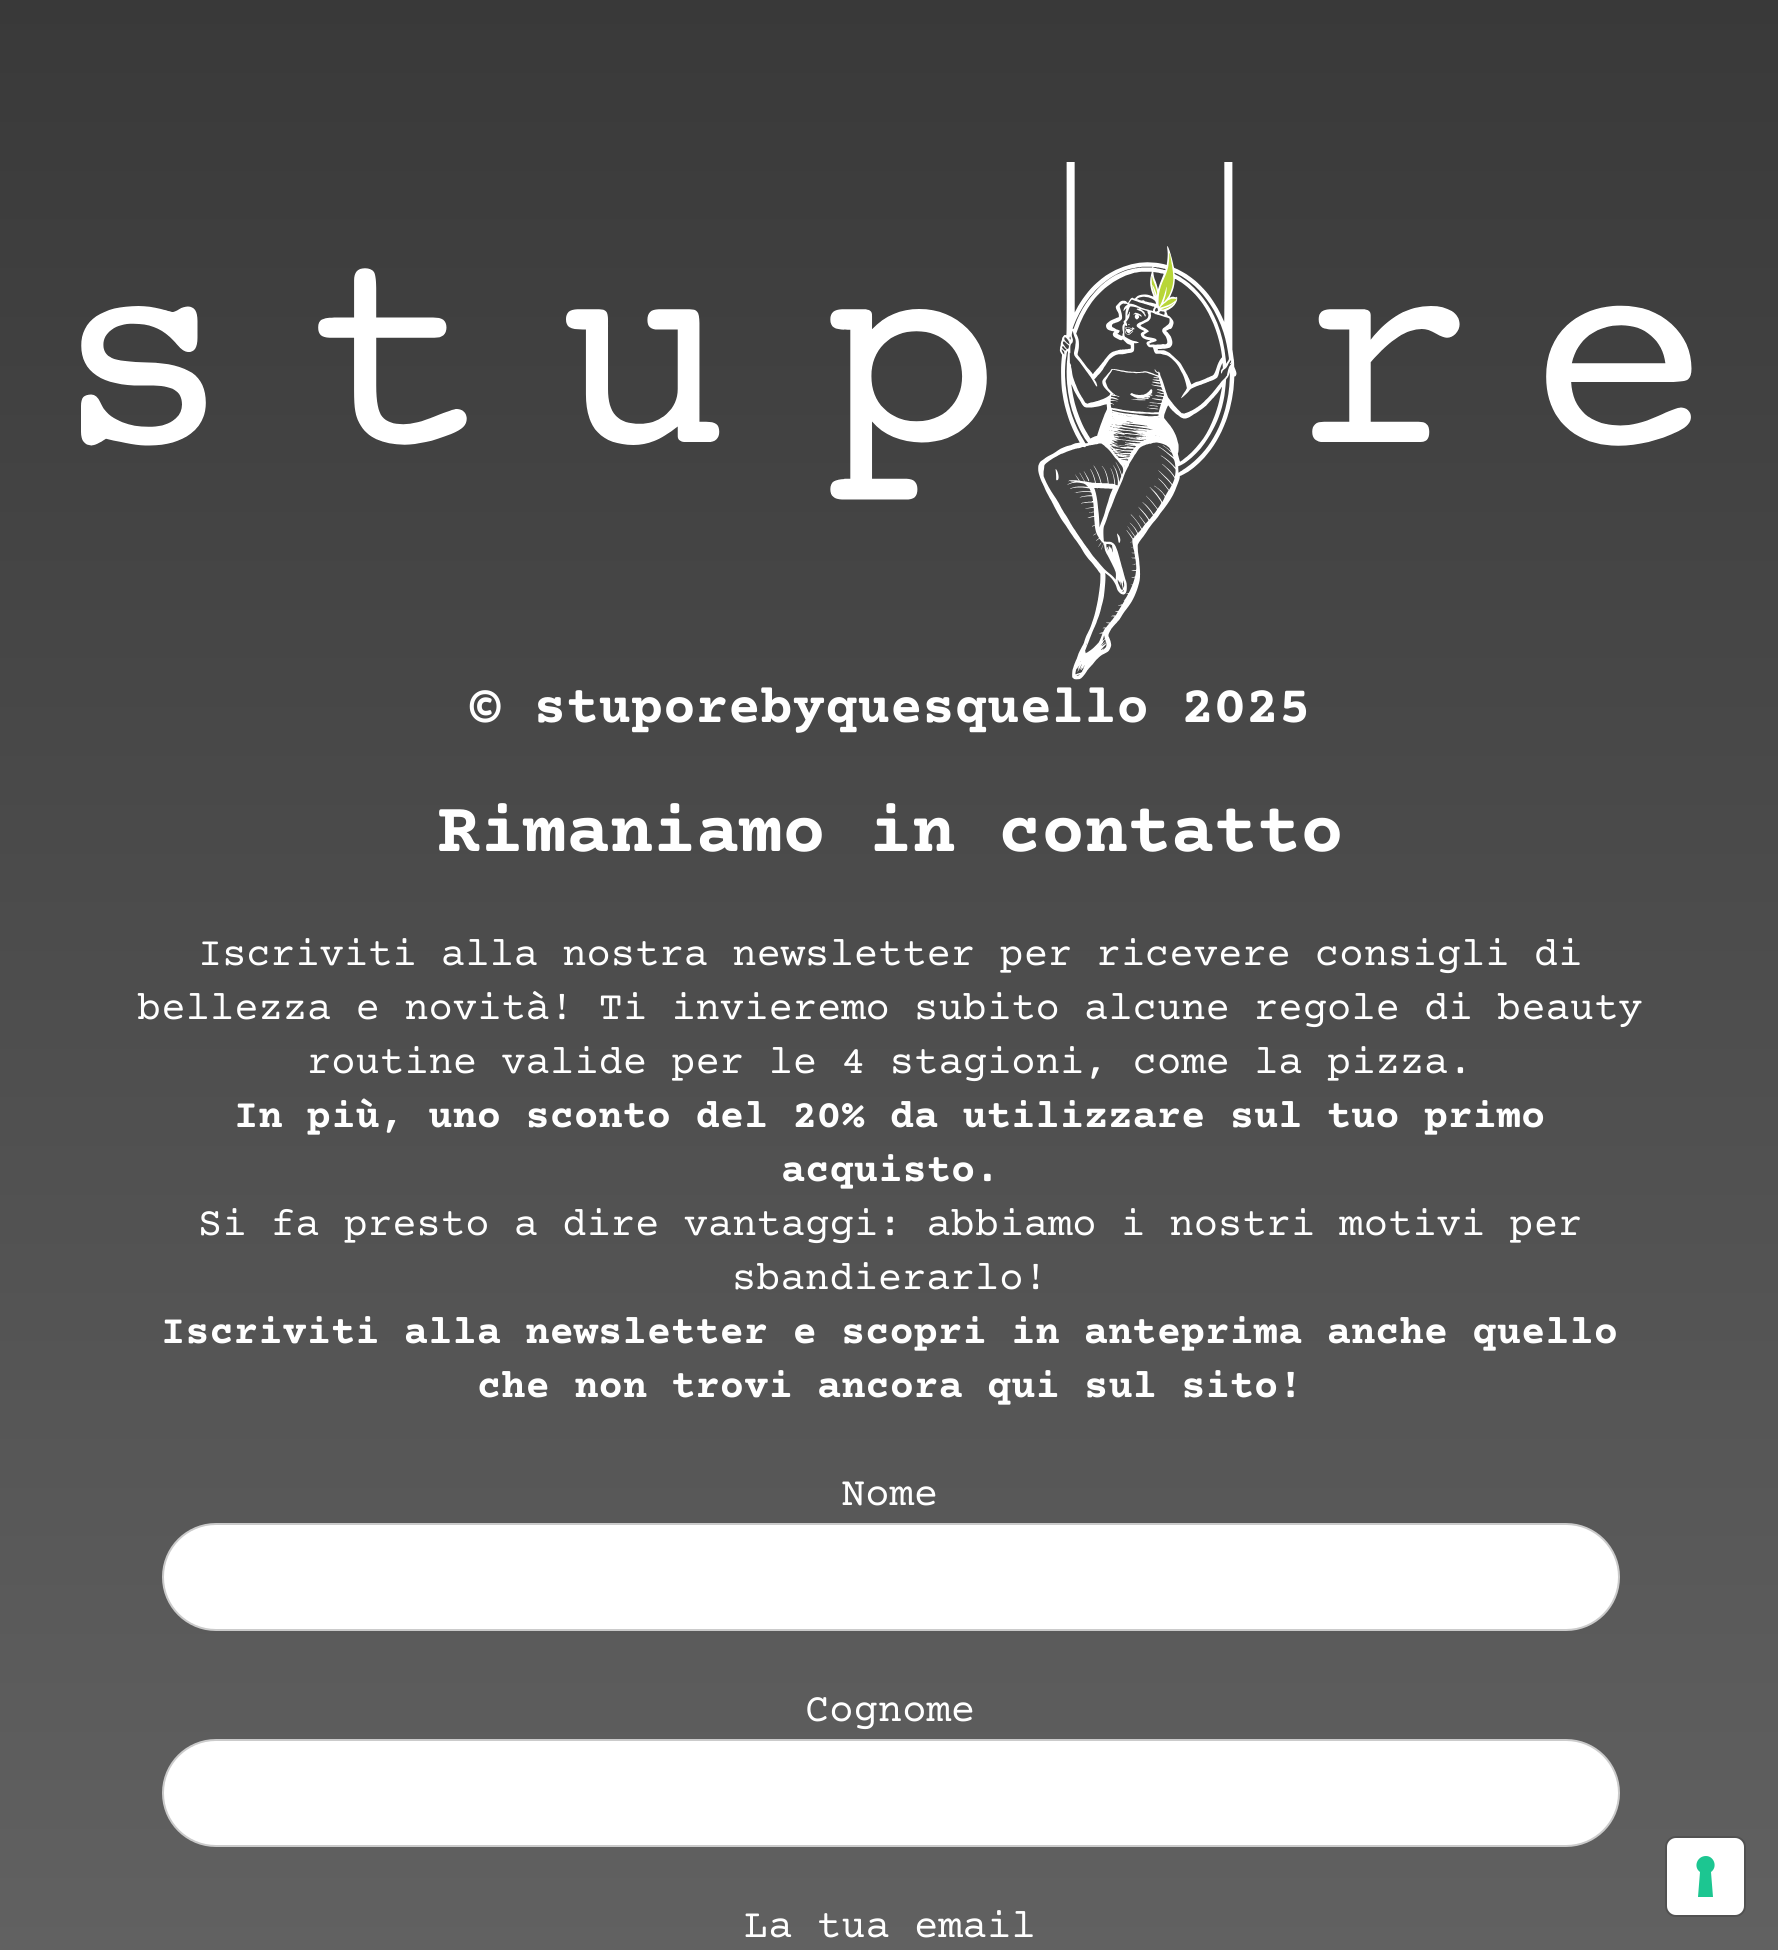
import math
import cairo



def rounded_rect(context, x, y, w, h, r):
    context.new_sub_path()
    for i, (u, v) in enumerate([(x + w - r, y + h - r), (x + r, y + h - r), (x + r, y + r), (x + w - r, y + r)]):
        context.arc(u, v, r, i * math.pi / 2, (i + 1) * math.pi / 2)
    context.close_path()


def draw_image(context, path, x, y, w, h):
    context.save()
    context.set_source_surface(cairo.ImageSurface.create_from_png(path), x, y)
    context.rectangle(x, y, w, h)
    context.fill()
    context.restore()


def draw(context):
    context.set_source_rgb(1, 1, 1)
    context.paint()
    gradient = cairo.LinearGradient(890, 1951, 890, 0)
    gradient.add_color_stop_rgba(0, 97 / 255, 97 / 255, 97 / 255, 1)
    gradient.add_color_stop_rgba(1, 57 / 255, 57 / 255, 57 / 255, 1)
    context.set_source(gradient)
    context.rectangle(0, 0, 1778, 1950)
    context.fill()
    draw_image(context, "images/1.png", 81, 162, 1611, 518)
    context.set_source_rgb(1, 1, 1)
    rounded_rect(context, 163, 1524, 1456, 106, 53)
    context.fill_preserve()
    context.set_source_rgb(203 / 255, 203 / 255, 203 / 255)
    context.stroke()
    context.set_source_rgb(1, 1, 1)
    rounded_rect(context, 163, 1740, 1456, 106, 53)
    context.fill_preserve()
    context.set_source_rgb(203 / 255, 203 / 255, 203 / 255)
    context.stroke()
    rounded_rect(context, 1666, 1837, 79, 79, 10)
    context.set_source_rgb(81 / 255, 81 / 255, 81 / 255)
    context.stroke()
    context.set_source_rgb(1, 1, 1)
    rounded_rect(context, 1667, 1838, 77, 77, 9)
    context.fill()
    context.set_source_rgb(28 / 255, 198 / 255, 145 / 255)
    context.set_fill_rule(cairo.FillRule.EVEN_ODD)
    context.new_path()
    context.move_to(1706, 1856)
    context.curve_to(1714, 1856, 1718, 1867, 1711, 1872)
    context.line_to(1713, 1897)
    context.line_to(1698, 1897)
    context.line_to(1700, 1872)
    context.curve_to(1693, 1867, 1697, 1856, 1706, 1856)
    context.close_path()
    context.fill()
    context.select_font_face("Courier Prime", cairo.FontSlant.NORMAL, cairo.FontWeight.BOLD)
    context.set_font_size(54)
    context.set_source_rgb(1, 1, 1)
    context.move_to(469, 722)
    context.show_text("© stuporebyquesquello 2025")
    context.set_font_size(72)
    context.move_to(437, 851)
    context.show_text("Rimaniamo in contatto")
    context.select_font_face("Courier Prime")
    context.set_font_size(40.5)
    context.move_to(198, 965)
    context.show_text("Iscriviti alla nostra newsletter per ricevere consigli di")
    context.move_to(137, 1019)
    context.show_text("bellezza e novità! Ti invieremo subito alcune regole di beauty")
    context.move_to(307, 1073)
    context.show_text("routine valide per le 4 stagioni, come la pizza.")
    context.select_font_face("Courier Prime", cairo.FontSlant.NORMAL, cairo.FontWeight.BOLD)
    context.move_to(234, 1127)
    context.show_text("In più, uno sconto del 20% da utilizzare sul tuo primo")
    context.move_to(781, 1181)
    context.show_text("acquisto.")
    context.select_font_face("Courier Prime")
    context.move_to(198, 1235)
    context.show_text("Si fa presto a dire vantaggi: abbiamo i nostri motivi per")
    context.move_to(732, 1289)
    context.show_text("sbandierarlo!")
    context.select_font_face("Courier Prime", cairo.FontSlant.NORMAL, cairo.FontWeight.BOLD)
    context.move_to(161, 1343)
    context.show_text("Iscriviti alla newsletter e scopri in anteprima anche quello")
    context.move_to(477, 1397)
    context.show_text("che non trovi ancora qui sul sito!")
    context.select_font_face("Courier Prime")
    context.move_to(841, 1505)
    context.show_text("Nome")
    context.move_to(805, 1721)
    context.show_text("Cognome")
    context.move_to(744, 1937)
    context.show_text("La tua email")


surface = cairo.ImageSurface(cairo.Format.RGB24, 1778, 1950)
context = cairo.Context(surface)
options = cairo.FontOptions()
options.set_hint_metrics(cairo.HintMetrics.OFF)
options.set_hint_style(cairo.HintStyle.NONE)
context.set_font_options(options)
context.set_miter_limit(4)
draw(context)
surface.write_to_png("out.png")
